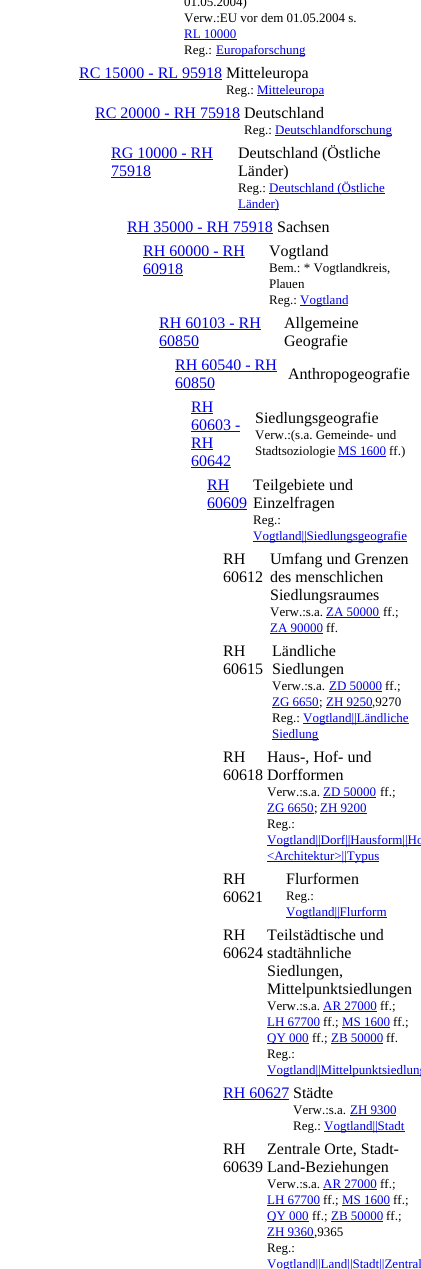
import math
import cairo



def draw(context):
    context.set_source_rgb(1, 1, 1)
    context.paint()
    context.set_source_rgb(0, 0, 238 / 255)
    context.rectangle(184, 39, 53, 1)
    context.fill()
    context.rectangle(216, 55, 89, 1)
    context.fill()
    context.rectangle(79, 79, 143, 1)
    context.fill()
    context.rectangle(257, 95, 67, 1)
    context.fill()
    context.rectangle(95, 119, 145, 1)
    context.fill()
    context.rectangle(275, 135, 117, 1)
    context.fill()
    context.rectangle(111, 159, 102, 1)
    context.fill()
    context.rectangle(111, 177, 40, 1)
    context.fill()
    context.rectangle(269, 193, 116, 1)
    context.fill()
    context.rectangle(238, 209, 41, 1)
    context.fill()
    context.rectangle(127, 233, 146, 1)
    context.fill()
    context.rectangle(143, 257, 102, 1)
    context.fill()
    context.rectangle(143, 275, 40, 1)
    context.fill()
    context.rectangle(300, 305, 48, 1)
    context.fill()
    context.rectangle(159, 329, 102, 1)
    context.fill()
    context.rectangle(159, 347, 40, 1)
    context.fill()
    context.rectangle(175, 371, 102, 1)
    context.fill()
    context.rectangle(175, 389, 40, 1)
    context.fill()
    context.rectangle(191, 413, 22, 1)
    context.fill()
    context.rectangle(191, 431, 49, 1)
    context.fill()
    context.rectangle(191, 449, 22, 1)
    context.fill()
    context.rectangle(191, 467, 40, 1)
    context.fill()
    context.rectangle(338, 456, 48, 1)
    context.fill()
    context.rectangle(207, 491, 22, 1)
    context.fill()
    context.rectangle(207, 509, 40, 1)
    context.fill()
    context.rectangle(253, 541, 154, 1)
    context.fill()
    context.rectangle(326, 617, 54, 1)
    context.fill()
    context.rectangle(270, 633, 53, 1)
    context.fill()
    context.rectangle(329, 691, 53, 1)
    context.fill()
    context.rectangle(272, 707, 47, 1)
    context.fill()
    context.rectangle(326, 707, 46, 1)
    context.fill()
    context.rectangle(303, 723, 106, 1)
    context.fill()
    context.rectangle(272, 739, 47, 1)
    context.fill()
    context.rectangle(323, 797, 53, 1)
    context.fill()
    context.rectangle(267, 813, 47, 1)
    context.fill()
    context.rectangle(320, 813, 47, 1)
    context.fill()
    context.rectangle(267, 845, 154, 1)
    context.fill()
    context.rectangle(267, 861, 112, 1)
    context.fill()
    context.rectangle(286, 917, 101, 1)
    context.fill()
    context.rectangle(323, 1011, 54, 1)
    context.fill()
    context.rectangle(267, 1027, 53, 1)
    context.fill()
    context.rectangle(342, 1027, 48, 1)
    context.fill()
    context.rectangle(267, 1043, 42, 1)
    context.fill()
    context.rectangle(331, 1043, 52, 1)
    context.fill()
    context.rectangle(267, 1075, 154, 1)
    context.fill()
    context.rectangle(223, 1099, 66, 1)
    context.fill()
    context.rectangle(350, 1115, 46, 1)
    context.fill()
    context.rectangle(324, 1131, 81, 1)
    context.fill()
    context.rectangle(323, 1189, 54, 1)
    context.fill()
    context.rectangle(267, 1205, 53, 1)
    context.fill()
    context.rectangle(342, 1205, 48, 1)
    context.fill()
    context.rectangle(267, 1221, 42, 1)
    context.fill()
    context.rectangle(331, 1221, 52, 1)
    context.fill()
    context.rectangle(267, 1237, 47, 1)
    context.fill()
    context.select_font_face("Liberation Serif")
    context.set_font_size(13)
    context.set_source_rgb(0, 0, 0)
    context.move_to(184, 6)
    context.show_text("01.05.2004)")
    context.move_to(184, 22)
    context.show_text("Verw.:EU vor dem 01.05.2004 s.")
    context.set_source_rgb(0, 0, 238 / 255)
    context.move_to(184, 38)
    context.show_text("RL 10000")
    context.set_source_rgb(0, 0, 0)
    context.move_to(184, 54)
    context.show_text("Reg.:")
    context.set_source_rgb(0, 0, 238 / 255)
    context.move_to(216, 54)
    context.show_text("Europaforschung")
    context.set_font_size(16)
    context.move_to(79, 78)
    context.show_text("RC 15000 - RL 95918")
    context.set_source_rgb(0, 0, 0)
    context.move_to(226, 78)
    context.show_text("Mitteleuropa")
    context.set_font_size(13)
    context.move_to(226, 94)
    context.show_text("Reg.:")
    context.set_source_rgb(0, 0, 238 / 255)
    context.move_to(257, 94)
    context.show_text("Mitteleuropa")
    context.set_font_size(16)
    context.move_to(95, 118)
    context.show_text("RC 20000 - RH 75918")
    context.set_source_rgb(0, 0, 0)
    context.move_to(244, 118)
    context.show_text("Deutschland")
    context.set_font_size(13)
    context.move_to(244, 134)
    context.show_text("Reg.:")
    context.set_source_rgb(0, 0, 238 / 255)
    context.move_to(275, 134)
    context.show_text("Deutschlandforschung")
    context.set_font_size(16)
    context.move_to(111, 158)
    context.show_text("RG 10000 - RH")
    context.move_to(111, 176)
    context.show_text("75918")
    context.set_source_rgb(0, 0, 0)
    context.move_to(238, 158)
    context.show_text("Deutschland (Östliche")
    context.move_to(238, 176)
    context.show_text("Länder)")
    context.set_font_size(13)
    context.move_to(238, 192)
    context.show_text("Reg.:")
    context.set_source_rgb(0, 0, 238 / 255)
    context.move_to(269, 192)
    context.show_text("Deutschland (Östliche")
    context.move_to(238, 208)
    context.show_text("Länder)")
    context.set_font_size(16)
    context.move_to(127, 232)
    context.show_text("RH 35000 - RH 75918")
    context.set_source_rgb(0, 0, 0)
    context.move_to(277, 232)
    context.show_text("Sachsen")
    context.set_source_rgb(0, 0, 238 / 255)
    context.move_to(143, 256)
    context.show_text("RH 60000 - RH")
    context.move_to(143, 274)
    context.show_text("60918")
    context.set_source_rgb(0, 0, 0)
    context.move_to(269, 256)
    context.show_text("Vogtland")
    context.set_font_size(13)
    context.move_to(269, 272)
    context.show_text("Bem.: * Vogtlandkreis,")
    context.move_to(269, 288)
    context.show_text("Plauen")
    context.move_to(269, 304)
    context.show_text("Reg.:")
    context.set_source_rgb(0, 0, 238 / 255)
    context.move_to(300, 304)
    context.show_text("Vogtland")
    context.set_font_size(16)
    context.move_to(159, 328)
    context.show_text("RH 60103 - RH")
    context.move_to(159, 346)
    context.show_text("60850")
    context.set_source_rgb(0, 0, 0)
    context.move_to(284, 328)
    context.show_text("Allgemeine")
    context.move_to(284, 346)
    context.show_text("Geografie")
    context.set_source_rgb(0, 0, 238 / 255)
    context.move_to(175, 370)
    context.show_text("RH 60540 - RH")
    context.move_to(175, 388)
    context.show_text("60850")
    context.set_source_rgb(0, 0, 0)
    context.move_to(288, 379)
    context.show_text("Anthropogeografie")
    context.set_source_rgb(0, 0, 238 / 255)
    context.move_to(191, 412)
    context.show_text("RH")
    context.move_to(191, 430)
    context.show_text("60603 -")
    context.move_to(191, 448)
    context.show_text("RH")
    context.move_to(191, 466)
    context.show_text("60642")
    context.set_source_rgb(0, 0, 0)
    context.move_to(255, 423)
    context.show_text("Siedlungsgeografie")
    context.set_font_size(13)
    context.move_to(255, 439)
    context.show_text("Verw.:(s.a. Gemeinde- und")
    context.move_to(255, 455)
    context.show_text("Stadtsoziologie")
    context.set_source_rgb(0, 0, 238 / 255)
    context.move_to(338, 455)
    context.show_text("MS 1600")
    context.set_source_rgb(0, 0, 0)
    context.move_to(389, 455)
    context.show_text("ff.)")
    context.set_font_size(16)
    context.set_source_rgb(0, 0, 238 / 255)
    context.move_to(207, 490)
    context.show_text("RH")
    context.move_to(207, 508)
    context.show_text("60609")
    context.set_source_rgb(0, 0, 0)
    context.move_to(253, 490)
    context.show_text("Teilgebiete und")
    context.move_to(253, 508)
    context.show_text("Einzelfragen")
    context.set_font_size(13)
    context.move_to(253, 524)
    context.show_text("Reg.:")
    context.set_source_rgb(0, 0, 238 / 255)
    context.move_to(253, 540)
    context.show_text("Vogtland||Siedlungsgeografie")
    context.set_font_size(16)
    context.set_source_rgb(0, 0, 0)
    context.move_to(223, 564)
    context.show_text("RH")
    context.move_to(223, 582)
    context.show_text("60612")
    context.move_to(270, 564)
    context.show_text("Umfang und Grenzen")
    context.move_to(270, 582)
    context.show_text("des menschlichen")
    context.move_to(270, 600)
    context.show_text("Siedlungsraumes")
    context.set_font_size(13)
    context.move_to(270, 616)
    context.show_text("Verw.:s.a.")
    context.set_source_rgb(0, 0, 238 / 255)
    context.move_to(326, 616)
    context.show_text("ZA 50000")
    context.set_source_rgb(0, 0, 0)
    context.move_to(383, 616)
    context.show_text("ff.;")
    context.set_source_rgb(0, 0, 238 / 255)
    context.move_to(270, 632)
    context.show_text("ZA 90000")
    context.set_source_rgb(0, 0, 0)
    context.move_to(326, 632)
    context.show_text("ff.")
    context.set_font_size(16)
    context.move_to(223, 656)
    context.show_text("RH")
    context.move_to(223, 674)
    context.show_text("60615")
    context.move_to(272, 656)
    context.show_text("Ländliche")
    context.move_to(272, 674)
    context.show_text("Siedlungen")
    context.set_font_size(13)
    context.move_to(272, 690)
    context.show_text("Verw.:s.a.")
    context.set_source_rgb(0, 0, 238 / 255)
    context.move_to(329, 690)
    context.show_text("ZD 50000")
    context.set_source_rgb(0, 0, 0)
    context.move_to(385, 690)
    context.show_text("ff.;")
    context.set_source_rgb(0, 0, 238 / 255)
    context.move_to(272, 706)
    context.show_text("ZG 6650")
    context.set_source_rgb(0, 0, 0)
    context.move_to(319, 706)
    context.show_text(";")
    context.set_source_rgb(0, 0, 238 / 255)
    context.move_to(326, 706)
    context.show_text("ZH 9250")
    context.set_source_rgb(0, 0, 0)
    context.move_to(372, 706)
    context.show_text(",9270")
    context.move_to(272, 722)
    context.show_text("Reg.:")
    context.set_source_rgb(0, 0, 238 / 255)
    context.move_to(303, 722)
    context.show_text("Vogtland||Ländliche")
    context.move_to(272, 738)
    context.show_text("Siedlung")
    context.set_font_size(16)
    context.set_source_rgb(0, 0, 0)
    context.move_to(267, 762)
    context.show_text("Haus-, Hof- und")
    context.set_font_size(13)
    context.move_to(267, 796)
    context.show_text("Verw.:s.a.")
    context.set_source_rgb(0, 0, 238 / 255)
    context.move_to(323, 796)
    context.show_text("ZD 50000")
    context.set_source_rgb(0, 0, 0)
    context.move_to(380, 796)
    context.show_text("ff.;")
    context.set_source_rgb(0, 0, 238 / 255)
    context.move_to(267, 812)
    context.show_text("ZG 6650")
    context.set_source_rgb(0, 0, 0)
    context.move_to(314, 812)
    context.show_text(";")
    context.set_source_rgb(0, 0, 238 / 255)
    context.move_to(320, 812)
    context.show_text("ZH 9200")
    context.set_source_rgb(0, 0, 0)
    context.move_to(267, 828)
    context.show_text("Reg.:")
    context.set_source_rgb(0, 0, 238 / 255)
    context.move_to(267, 844)
    context.show_text("Vogtland||Dorf||Hausform||Ho")
    context.move_to(267, 860)
    context.show_text("<Architektur>||Typus")
    context.set_font_size(16)
    context.set_source_rgb(0, 0, 0)
    context.move_to(223, 762)
    context.show_text("RH")
    context.move_to(223, 780)
    context.show_text("60618 Dorfformen")
    context.move_to(223, 884)
    context.show_text("RH")
    context.move_to(223, 902)
    context.show_text("60621")
    context.move_to(286, 884)
    context.show_text("Flurformen")
    context.set_font_size(13)
    context.move_to(286, 900)
    context.show_text("Reg.:")
    context.set_source_rgb(0, 0, 238 / 255)
    context.move_to(286, 916)
    context.show_text("Vogtland||Flurform")
    context.set_font_size(16)
    context.set_source_rgb(0, 0, 0)
    context.move_to(267, 940)
    context.show_text("Teilstädtische und")
    context.move_to(267, 976)
    context.show_text("Siedlungen,")
    context.move_to(267, 994)
    context.show_text("Mittelpunktsiedlungen")
    context.set_font_size(13)
    context.move_to(267, 1010)
    context.show_text("Verw.:s.a.")
    context.set_source_rgb(0, 0, 238 / 255)
    context.move_to(323, 1010)
    context.show_text("AR 27000")
    context.set_source_rgb(0, 0, 0)
    context.move_to(380, 1010)
    context.show_text("ff.;")
    context.set_source_rgb(0, 0, 238 / 255)
    context.move_to(267, 1026)
    context.show_text("LH 67700")
    context.set_source_rgb(0, 0, 0)
    context.move_to(323, 1026)
    context.show_text("ff.;")
    context.set_source_rgb(0, 0, 238 / 255)
    context.move_to(342, 1026)
    context.show_text("MS 1600")
    context.set_source_rgb(0, 0, 0)
    context.move_to(393, 1026)
    context.show_text("ff.;")
    context.set_source_rgb(0, 0, 238 / 255)
    context.move_to(267, 1042)
    context.show_text("QY 000")
    context.set_source_rgb(0, 0, 0)
    context.move_to(312, 1042)
    context.show_text("ff.;")
    context.set_source_rgb(0, 0, 238 / 255)
    context.move_to(331, 1042)
    context.show_text("ZB 50000")
    context.set_source_rgb(0, 0, 0)
    context.move_to(386, 1042)
    context.show_text("ff.")
    context.move_to(267, 1058)
    context.show_text("Reg.:")
    context.set_source_rgb(0, 0, 238 / 255)
    context.move_to(267, 1074)
    context.show_text("Vogtland||Mittelpunktsiedlung")
    context.set_font_size(16)
    context.set_source_rgb(0, 0, 0)
    context.move_to(223, 940)
    context.show_text("RH")
    context.move_to(223, 958)
    context.show_text("60624 stadtähnliche")
    context.set_source_rgb(0, 0, 238 / 255)
    context.move_to(223, 1098)
    context.show_text("RH 60627")
    context.set_source_rgb(0, 0, 0)
    context.move_to(293, 1098)
    context.show_text("Städte")
    context.set_font_size(13)
    context.move_to(293, 1114)
    context.show_text("Verw.:s.a.")
    context.set_source_rgb(0, 0, 238 / 255)
    context.move_to(350, 1114)
    context.show_text("ZH 9300")
    context.set_source_rgb(0, 0, 0)
    context.move_to(293, 1130)
    context.show_text("Reg.:")
    context.set_source_rgb(0, 0, 238 / 255)
    context.move_to(324, 1130)
    context.show_text("Vogtland||Stadt")
    context.set_font_size(16)
    context.set_source_rgb(0, 0, 0)
    context.move_to(267, 1154)
    context.show_text("Zentrale Orte, Stadt-")
    context.set_font_size(13)
    context.move_to(267, 1188)
    context.show_text("Verw.:s.a.")
    context.set_source_rgb(0, 0, 238 / 255)
    context.move_to(323, 1188)
    context.show_text("AR 27000")
    context.set_source_rgb(0, 0, 0)
    context.move_to(380, 1188)
    context.show_text("ff.;")
    context.set_source_rgb(0, 0, 238 / 255)
    context.move_to(267, 1204)
    context.show_text("LH 67700")
    context.set_source_rgb(0, 0, 0)
    context.move_to(323, 1204)
    context.show_text("ff.;")
    context.set_source_rgb(0, 0, 238 / 255)
    context.move_to(342, 1204)
    context.show_text("MS 1600")
    context.set_source_rgb(0, 0, 0)
    context.move_to(393, 1204)
    context.show_text("ff.;")
    context.set_source_rgb(0, 0, 238 / 255)
    context.move_to(267, 1220)
    context.show_text("QY 000")
    context.set_source_rgb(0, 0, 0)
    context.move_to(312, 1220)
    context.show_text("ff.;")
    context.set_source_rgb(0, 0, 238 / 255)
    context.move_to(331, 1220)
    context.show_text("ZB 50000")
    context.set_source_rgb(0, 0, 0)
    context.move_to(386, 1220)
    context.show_text("ff.;")
    context.set_source_rgb(0, 0, 238 / 255)
    context.move_to(267, 1236)
    context.show_text("ZH 9360")
    context.set_source_rgb(0, 0, 0)
    context.move_to(314, 1236)
    context.show_text(",9365")
    context.move_to(267, 1252)
    context.show_text("Reg.:")
    context.set_source_rgb(0, 0, 238 / 255)
    context.move_to(267, 1268)
    context.show_text("Vogtland||Land||Stadt||Zentral")
    context.set_font_size(16)
    context.set_source_rgb(0, 0, 0)
    context.move_to(223, 1154)
    context.show_text("RH")
    context.move_to(223, 1172)
    context.show_text("60639 Land-Beziehungen")


surface = cairo.ImageSurface(cairo.Format.RGB24, 421, 1269)
context = cairo.Context(surface)
options = cairo.FontOptions()
options.set_hint_metrics(cairo.HintMetrics.OFF)
options.set_hint_style(cairo.HintStyle.NONE)
context.set_font_options(options)
context.set_miter_limit(4)
draw(context)
surface.write_to_png("out.png")
